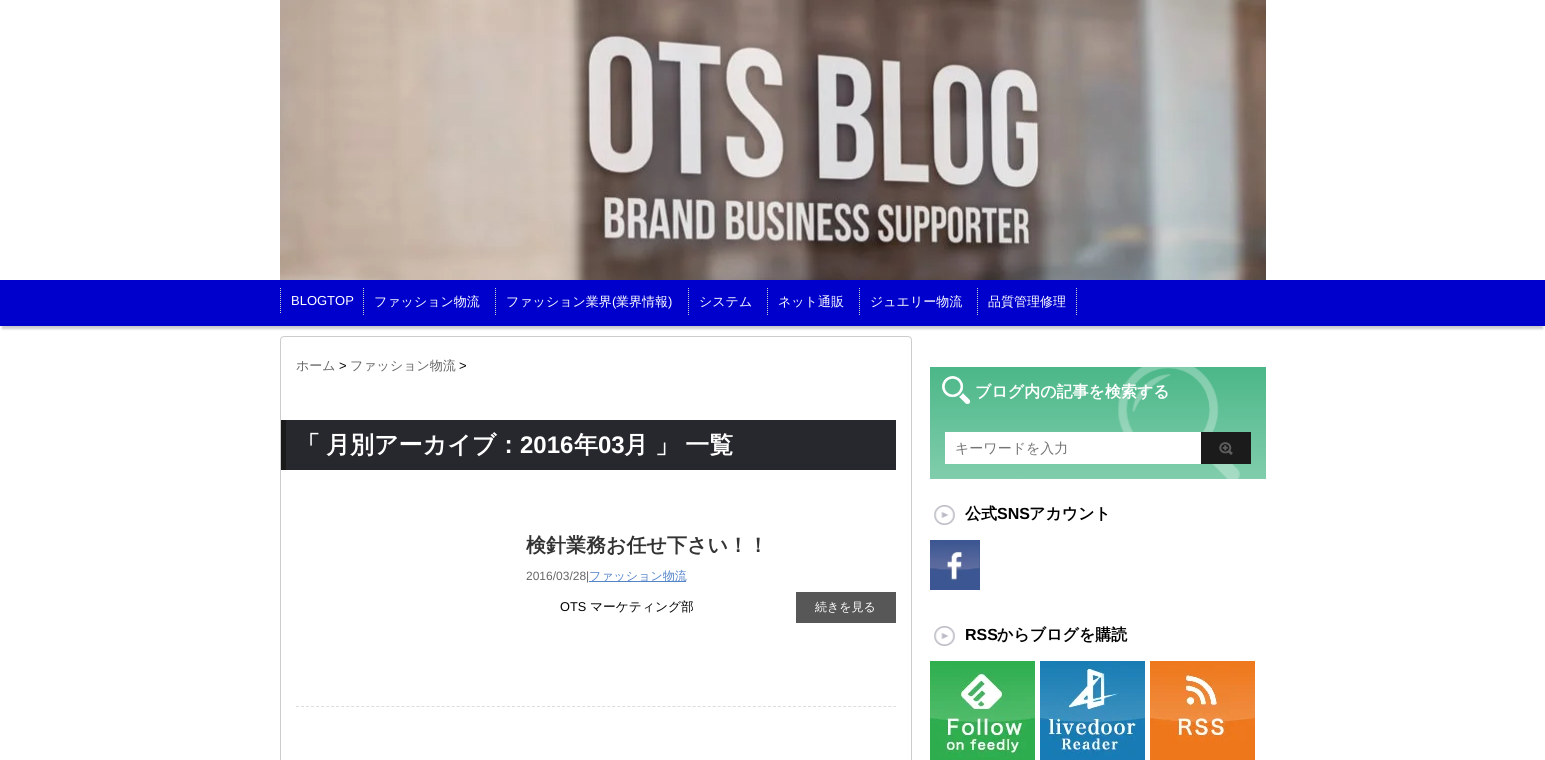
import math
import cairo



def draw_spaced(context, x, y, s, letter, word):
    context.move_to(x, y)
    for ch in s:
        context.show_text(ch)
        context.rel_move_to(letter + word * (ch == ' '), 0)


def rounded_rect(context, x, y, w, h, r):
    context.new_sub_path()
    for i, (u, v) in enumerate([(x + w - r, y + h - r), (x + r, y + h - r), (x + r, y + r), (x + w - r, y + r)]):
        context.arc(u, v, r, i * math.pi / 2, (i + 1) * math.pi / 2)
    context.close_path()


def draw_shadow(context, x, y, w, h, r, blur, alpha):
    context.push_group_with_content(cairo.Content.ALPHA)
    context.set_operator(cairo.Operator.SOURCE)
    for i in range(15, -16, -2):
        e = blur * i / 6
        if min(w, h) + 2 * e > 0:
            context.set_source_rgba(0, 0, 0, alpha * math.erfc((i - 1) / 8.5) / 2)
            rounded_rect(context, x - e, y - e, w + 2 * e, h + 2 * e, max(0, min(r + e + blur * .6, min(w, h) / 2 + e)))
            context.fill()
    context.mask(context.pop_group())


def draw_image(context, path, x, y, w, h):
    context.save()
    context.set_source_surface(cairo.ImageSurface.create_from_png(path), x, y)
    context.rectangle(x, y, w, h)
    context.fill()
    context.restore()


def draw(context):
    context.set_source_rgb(1, 1, 1)
    context.paint()
    draw_image(context, "images/1.png", 280, 0, 986, 280)
    context.set_source_rgb(0, 0, 0)
    draw_shadow(context, 2, 287, 1541, 42, 0, 1, 0.2)
    context.set_source_rgb(0, 0, 205 / 255)
    context.rectangle(0, 280, 1545, 46)
    context.fill()
    context.new_path()
    context.move_to(280.5, 288)
    context.line_to(280.5, 313)
    context.set_source_rgb(204 / 255, 204 / 255, 204 / 255)
    context.set_line_width(1)
    context.set_dash([1, 1])
    context.stroke()
    context.new_path()
    context.move_to(363.5, 288)
    context.line_to(363.5, 316)
    context.stroke()
    context.new_path()
    context.move_to(495.5, 288)
    context.line_to(495.5, 316)
    context.stroke()
    context.new_path()
    context.move_to(688.5, 288)
    context.line_to(688.5, 316)
    context.stroke()
    context.new_path()
    context.move_to(767.5, 288)
    context.line_to(767.5, 316)
    context.stroke()
    context.new_path()
    context.move_to(859.5, 288)
    context.line_to(859.5, 316)
    context.stroke()
    context.new_path()
    context.move_to(1076.5, 288)
    context.line_to(1076.5, 316)
    context.stroke()
    context.new_path()
    context.move_to(977.5, 288)
    context.line_to(977.5, 316)
    context.stroke()
    rounded_rect(context, 280.5, 336.5, 631, 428, 3.5)
    context.set_dash([])
    context.stroke()
    context.set_source_rgb(38 / 255, 40 / 255, 45 / 255)
    context.rectangle(286, 420, 610, 50)
    context.fill()
    context.set_source_rgb(26 / 255, 26 / 255, 26 / 255)
    context.rectangle(281, 420, 5, 50)
    context.fill()
    context.new_path()
    context.move_to(296, 706.5)
    context.line_to(896, 706.5)
    context.set_source_rgb(221 / 255, 221 / 255, 221 / 255)
    context.set_dash([3, 2.02])
    context.stroke()
    context.set_source_rgb(84 / 255, 132 / 255, 200 / 255)
    context.rectangle(589, 581, 97, 1)
    context.fill()
    context.set_source_rgb(87 / 255, 87 / 255, 87 / 255)
    context.rectangle(796, 592, 100, 31)
    context.fill()
    draw_image(context, "images/2.png", 930, 367, 336, 112)
    draw_image(context, "images/3.png", 942, 376, 28, 28)
    context.set_source_rgb(1, 1, 1)
    context.rectangle(945, 432, 256, 32)
    context.fill()
    draw_image(context, "images/4.png", 1201, 432, 50, 32)
    draw_image(context, "images/5.png", 934, 505, 21, 20)
    draw_image(context, "images/6.png", 930, 540, 50, 50)
    draw_image(context, "images/5.png", 934, 626, 21, 20)
    draw_image(context, "images/7.png", 930, 661, 105, 99)
    draw_image(context, "images/8.png", 1040, 661, 105, 99)
    draw_image(context, "images/9.png", 1150, 661, 105, 99)
    context.select_font_face("Liberation Sans")
    context.set_font_size(13)
    context.move_to(291, 305)
    context.show_text("BLOGTOP")
    context.select_font_face("WenQuanYi Zen Hei Medium")
    context.move_to(374, 306)
    context.show_text("ファッション物流")
    context.move_to(506, 306)
    context.show_text("ファッション業界")
    context.select_font_face("Liberation Sans")
    context.move_to(612, 306)
    context.show_text("(")
    context.select_font_face("WenQuanYi Zen Hei Medium")
    context.move_to(616, 306)
    context.show_text("業界情報")
    context.select_font_face("Liberation Sans")
    context.move_to(668, 306)
    context.show_text(")")
    context.select_font_face("WenQuanYi Zen Hei Medium")
    context.move_to(699, 306)
    context.show_text("システム")
    context.move_to(778, 306)
    context.show_text("ネット通販")
    context.move_to(870, 306)
    context.show_text("ジュエリー物流")
    context.move_to(988, 306)
    context.show_text("品質管理修理")
    context.set_source_rgb(102 / 255, 102 / 255, 102 / 255)
    context.move_to(296, 370)
    context.show_text("ホーム")
    context.select_font_face("Liberation Sans")
    context.set_source_rgb(0, 0, 0)
    context.move_to(339, 370)
    context.show_text(">")
    context.select_font_face("WenQuanYi Zen Hei Medium")
    context.set_source_rgb(102 / 255, 102 / 255, 102 / 255)
    context.move_to(350, 370)
    context.show_text("ファッション物流")
    context.select_font_face("Liberation Sans")
    context.set_source_rgb(0, 0, 0)
    context.move_to(459, 370)
    context.show_text(">")
    context.select_font_face("WenQuanYi Zen Hei", cairo.FontSlant.NORMAL, cairo.FontWeight.BOLD)
    context.set_font_size(24)
    context.set_source_rgb(1, 1, 1)
    context.move_to(296, 453)
    context.show_text("「")
    context.move_to(326, 453)
    context.show_text("月別アーカイブ：")
    context.select_font_face("Liberation Sans", cairo.FontSlant.NORMAL, cairo.FontWeight.BOLD)
    context.move_to(520, 453)
    context.show_text("2016")
    context.select_font_face("WenQuanYi Zen Hei", cairo.FontSlant.NORMAL, cairo.FontWeight.BOLD)
    context.move_to(574, 453)
    context.show_text("年")
    context.select_font_face("Liberation Sans", cairo.FontSlant.NORMAL, cairo.FontWeight.BOLD)
    context.move_to(598, 453)
    context.show_text("03")
    context.select_font_face("WenQuanYi Zen Hei", cairo.FontSlant.NORMAL, cairo.FontWeight.BOLD)
    context.move_to(624, 453)
    context.show_text("月")
    draw_spaced(context, 655, 453, "」 一覧", 0, -1)
    context.set_font_size(20)
    context.set_source_rgb(51 / 255, 51 / 255, 51 / 255)
    context.move_to(526, 552)
    context.show_text("検針業務お任せ下さい！！")
    context.select_font_face("Liberation Sans")
    context.set_font_size(12)
    context.set_source_rgb(102 / 255, 102 / 255, 102 / 255)
    context.move_to(526, 580)
    context.show_text("2016/03/28|")
    context.select_font_face("WenQuanYi Zen Hei Medium")
    context.set_source_rgb(84 / 255, 132 / 255, 200 / 255)
    context.move_to(589, 580)
    context.show_text("ファッション物流")
    context.select_font_face("Liberation Sans")
    context.set_font_size(12.75)
    context.set_source_rgb(0, 0, 0)
    context.move_to(560, 611)
    context.show_text("OTS")
    context.select_font_face("WenQuanYi Zen Hei Medium")
    context.move_to(590, 611)
    context.show_text("マーケティング部")
    context.set_font_size(12)
    context.set_source_rgb(1, 1, 1)
    context.move_to(815, 611)
    context.show_text("続きを見る")
    context.select_font_face("WenQuanYi Zen Hei", cairo.FontSlant.NORMAL, cairo.FontWeight.BOLD)
    context.set_font_size(16)
    context.move_to(975, 397)
    context.show_text("ブログ内の記事を検索する")
    context.select_font_face("WenQuanYi Zen Hei Medium")
    context.set_font_size(14)
    context.set_source_rgb(117 / 255, 117 / 255, 117 / 255)
    context.move_to(955, 453)
    context.show_text("キーワードを入力")
    context.select_font_face("WenQuanYi Zen Hei", cairo.FontSlant.NORMAL, cairo.FontWeight.BOLD)
    context.set_font_size(16)
    context.set_source_rgb(0, 0, 0)
    context.move_to(965, 519)
    context.show_text("公式")
    context.select_font_face("Liberation Sans", cairo.FontSlant.NORMAL, cairo.FontWeight.BOLD)
    context.move_to(997, 519)
    context.show_text("SNS")
    context.select_font_face("WenQuanYi Zen Hei", cairo.FontSlant.NORMAL, cairo.FontWeight.BOLD)
    context.move_to(1029, 519)
    context.show_text("アカウント")
    context.select_font_face("Liberation Sans", cairo.FontSlant.NORMAL, cairo.FontWeight.BOLD)
    context.move_to(965, 640)
    context.show_text("RSS")
    context.select_font_face("WenQuanYi Zen Hei", cairo.FontSlant.NORMAL, cairo.FontWeight.BOLD)
    context.move_to(997, 640)
    context.show_text("からブログを購読")


surface = cairo.ImageSurface(cairo.Format.RGB24, 1545, 760)
context = cairo.Context(surface)
options = cairo.FontOptions()
options.set_hint_metrics(cairo.HintMetrics.OFF)
options.set_hint_style(cairo.HintStyle.NONE)
context.set_font_options(options)
context.set_miter_limit(4)
draw(context)
surface.write_to_png("out.png")
